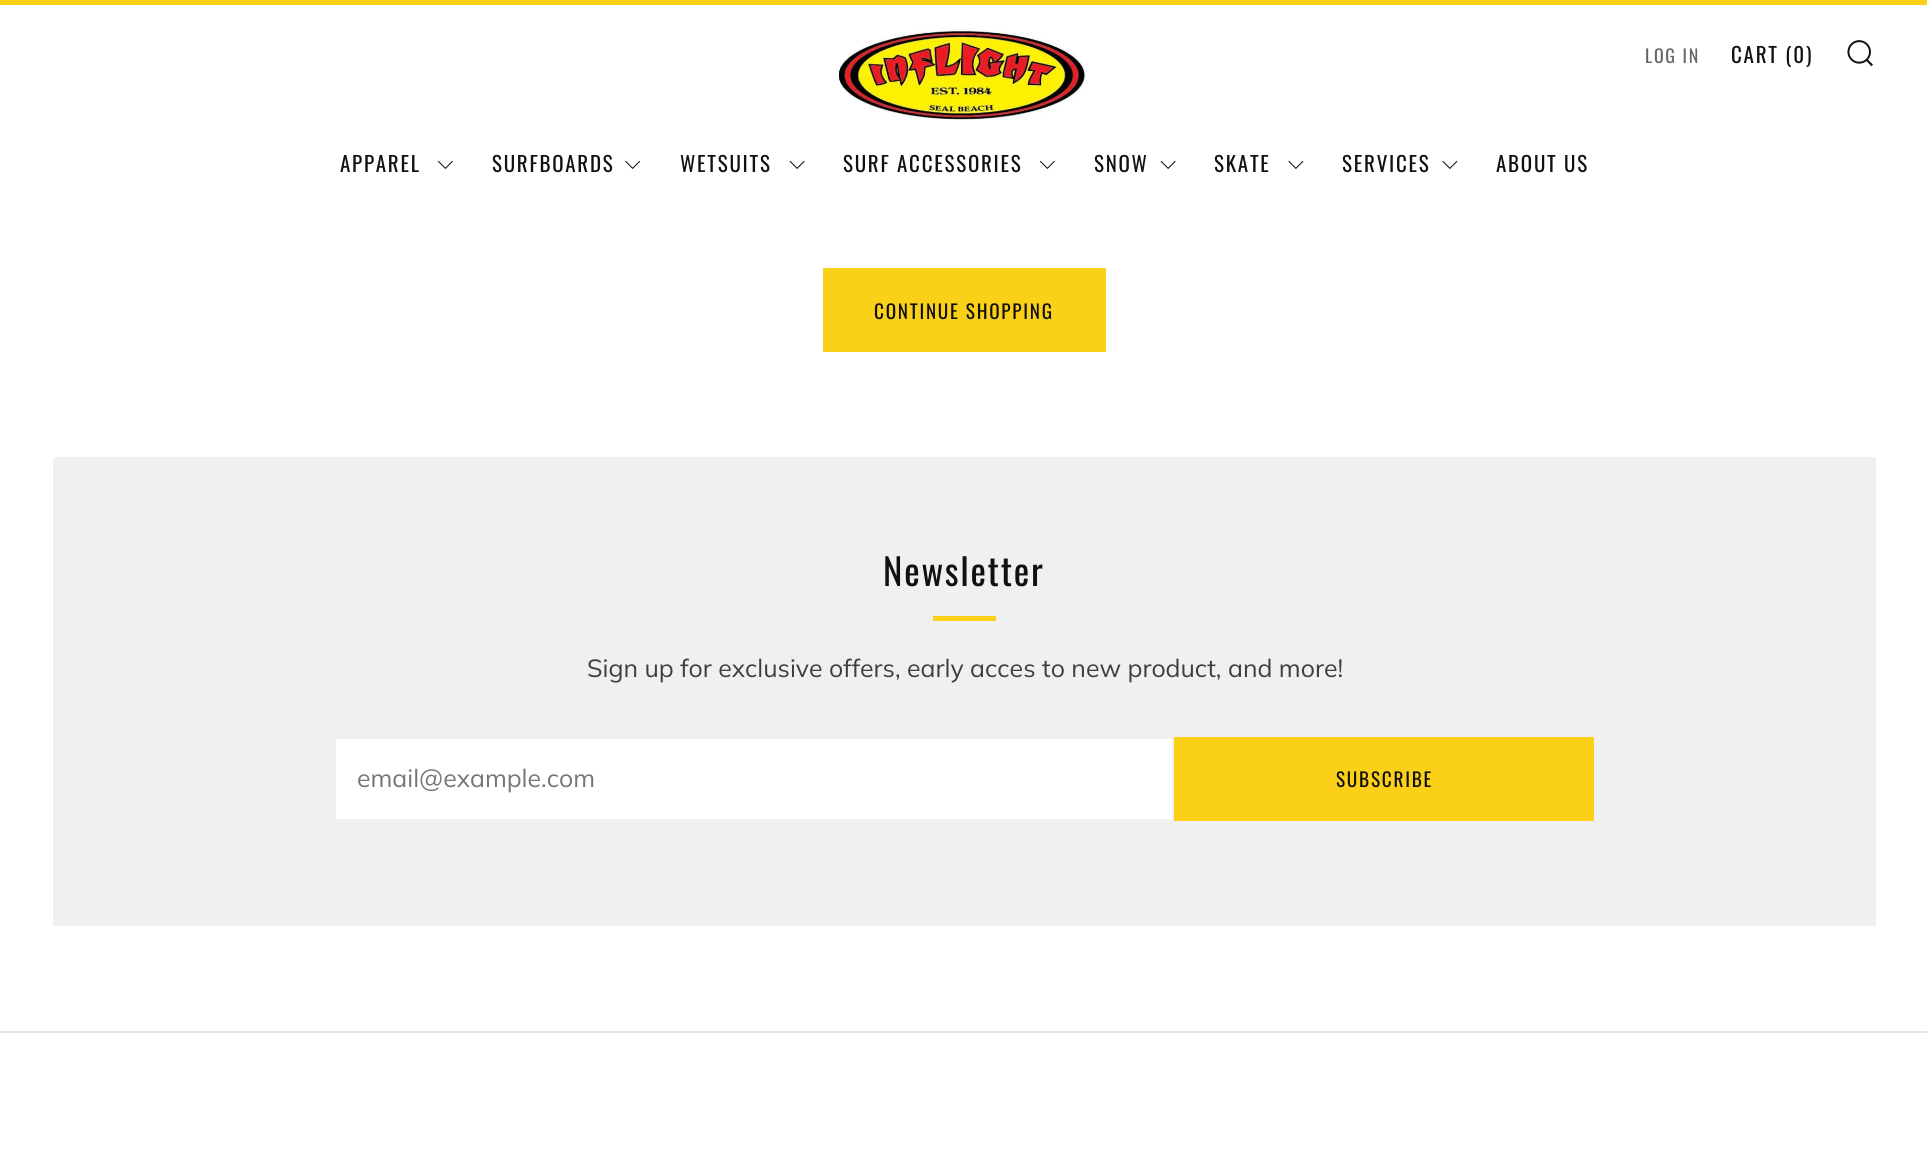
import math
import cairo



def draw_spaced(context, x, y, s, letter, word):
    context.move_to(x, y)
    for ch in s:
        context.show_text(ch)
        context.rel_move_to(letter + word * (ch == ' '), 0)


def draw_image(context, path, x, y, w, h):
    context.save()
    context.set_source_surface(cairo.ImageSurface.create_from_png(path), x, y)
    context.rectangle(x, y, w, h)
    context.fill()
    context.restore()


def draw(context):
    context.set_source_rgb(1, 1, 1)
    context.paint()
    context.set_source_rgb(250 / 255, 208 / 255, 24 / 255)
    context.rectangle(0, 0, 1927, 5)
    context.fill()
    draw_image(context, "images/1.png", 837, 28, 249, 92)
    draw_image(context, "images/2.png", 1847, 40, 26, 27)
    draw_image(context, "images/3.png", 437, 160, 16, 9)
    draw_image(context, "images/4.png", 625, 160, 16, 9)
    draw_image(context, "images/5.png", 789, 160, 16, 9)
    draw_image(context, "images/3.png", 1039, 160, 16, 9)
    draw_image(context, "images/5.png", 1160, 160, 16, 9)
    draw_image(context, "images/6.png", 1288, 160, 16, 9)
    draw_image(context, "images/6.png", 1442, 160, 16, 9)
    context.rectangle(823, 268, 283, 84)
    context.fill()
    context.set_source_rgb(240 / 255, 240 / 255, 240 / 255)
    context.rectangle(53, 457, 1823, 469)
    context.fill()
    context.set_source_rgb(250 / 255, 208 / 255, 24 / 255)
    context.rectangle(933, 616, 63, 5)
    context.fill()
    context.set_source_rgb(1, 1, 1)
    context.rectangle(336, 739, 836, 80)
    context.fill()
    context.set_source_rgb(250 / 255, 208 / 255, 24 / 255)
    context.rectangle(1174, 737, 420, 84)
    context.fill()
    context.set_source_rgb(228 / 255, 228 / 255, 228 / 255)
    context.rectangle(0, 1031, 1927, 2)
    context.fill()
    context.select_font_face("Oswald")
    context.set_font_size(18)
    context.set_source_rgb(102 / 255, 102 / 255, 102 / 255)
    draw_spaced(context, 1645, 63, "LOG IN", 1.75, 0)
    context.set_font_size(21)
    context.set_source_rgb(17 / 255, 17 / 255, 17 / 255)
    draw_spaced(context, 1731, 63, "CART (0)", 1.75, 0)
    draw_spaced(context, 340, 172, "APPAREL", 1.75, 0)
    draw_spaced(context, 492, 172, "SURFBOARDS", 1.75, 0)
    draw_spaced(context, 680, 172, "WETSUITS", 1.75, 0)
    draw_spaced(context, 843, 172, "SURF ACCESSORIES", 1.75, 0)
    draw_spaced(context, 1094, 172, "SNOW", 1.75, 0)
    draw_spaced(context, 1214, 172, "SKATE", 1.75, 0)
    draw_spaced(context, 1342, 172, "SERVICES", 1.75, 0)
    draw_spaced(context, 1496, 172, "ABOUT US", 1.75, 0)
    context.set_font_size(19.25)
    draw_spaced(context, 874, 319, "CONTINUE SHOPPING", 1.75, 0)
    context.set_font_size(36.75)
    draw_spaced(context, 883, 586, "Newsletter", 1.75, 0)
    context.select_font_face("Muli")
    context.set_font_size(24.85)
    context.set_source_rgb(62 / 255, 62 / 255, 62 / 255)
    context.move_to(587, 677)
    context.show_text("Sign up for exclusive offers, early acces to new product, and more!")
    context.set_source_rgb(117 / 255, 117 / 255, 117 / 255)
    context.move_to(357, 787)
    context.show_text("email@example.com")
    context.select_font_face("Oswald")
    context.set_font_size(19.25)
    context.set_source_rgb(17 / 255, 17 / 255, 17 / 255)
    draw_spaced(context, 1336, 787, "SUBSCRIBE", 1.75, 0)


surface = cairo.ImageSurface(cairo.Format.RGB24, 1927, 1154)
context = cairo.Context(surface)
options = cairo.FontOptions()
options.set_hint_metrics(cairo.HintMetrics.OFF)
options.set_hint_style(cairo.HintStyle.NONE)
context.set_font_options(options)
context.set_miter_limit(4)
draw(context)
surface.write_to_png("out.png")
